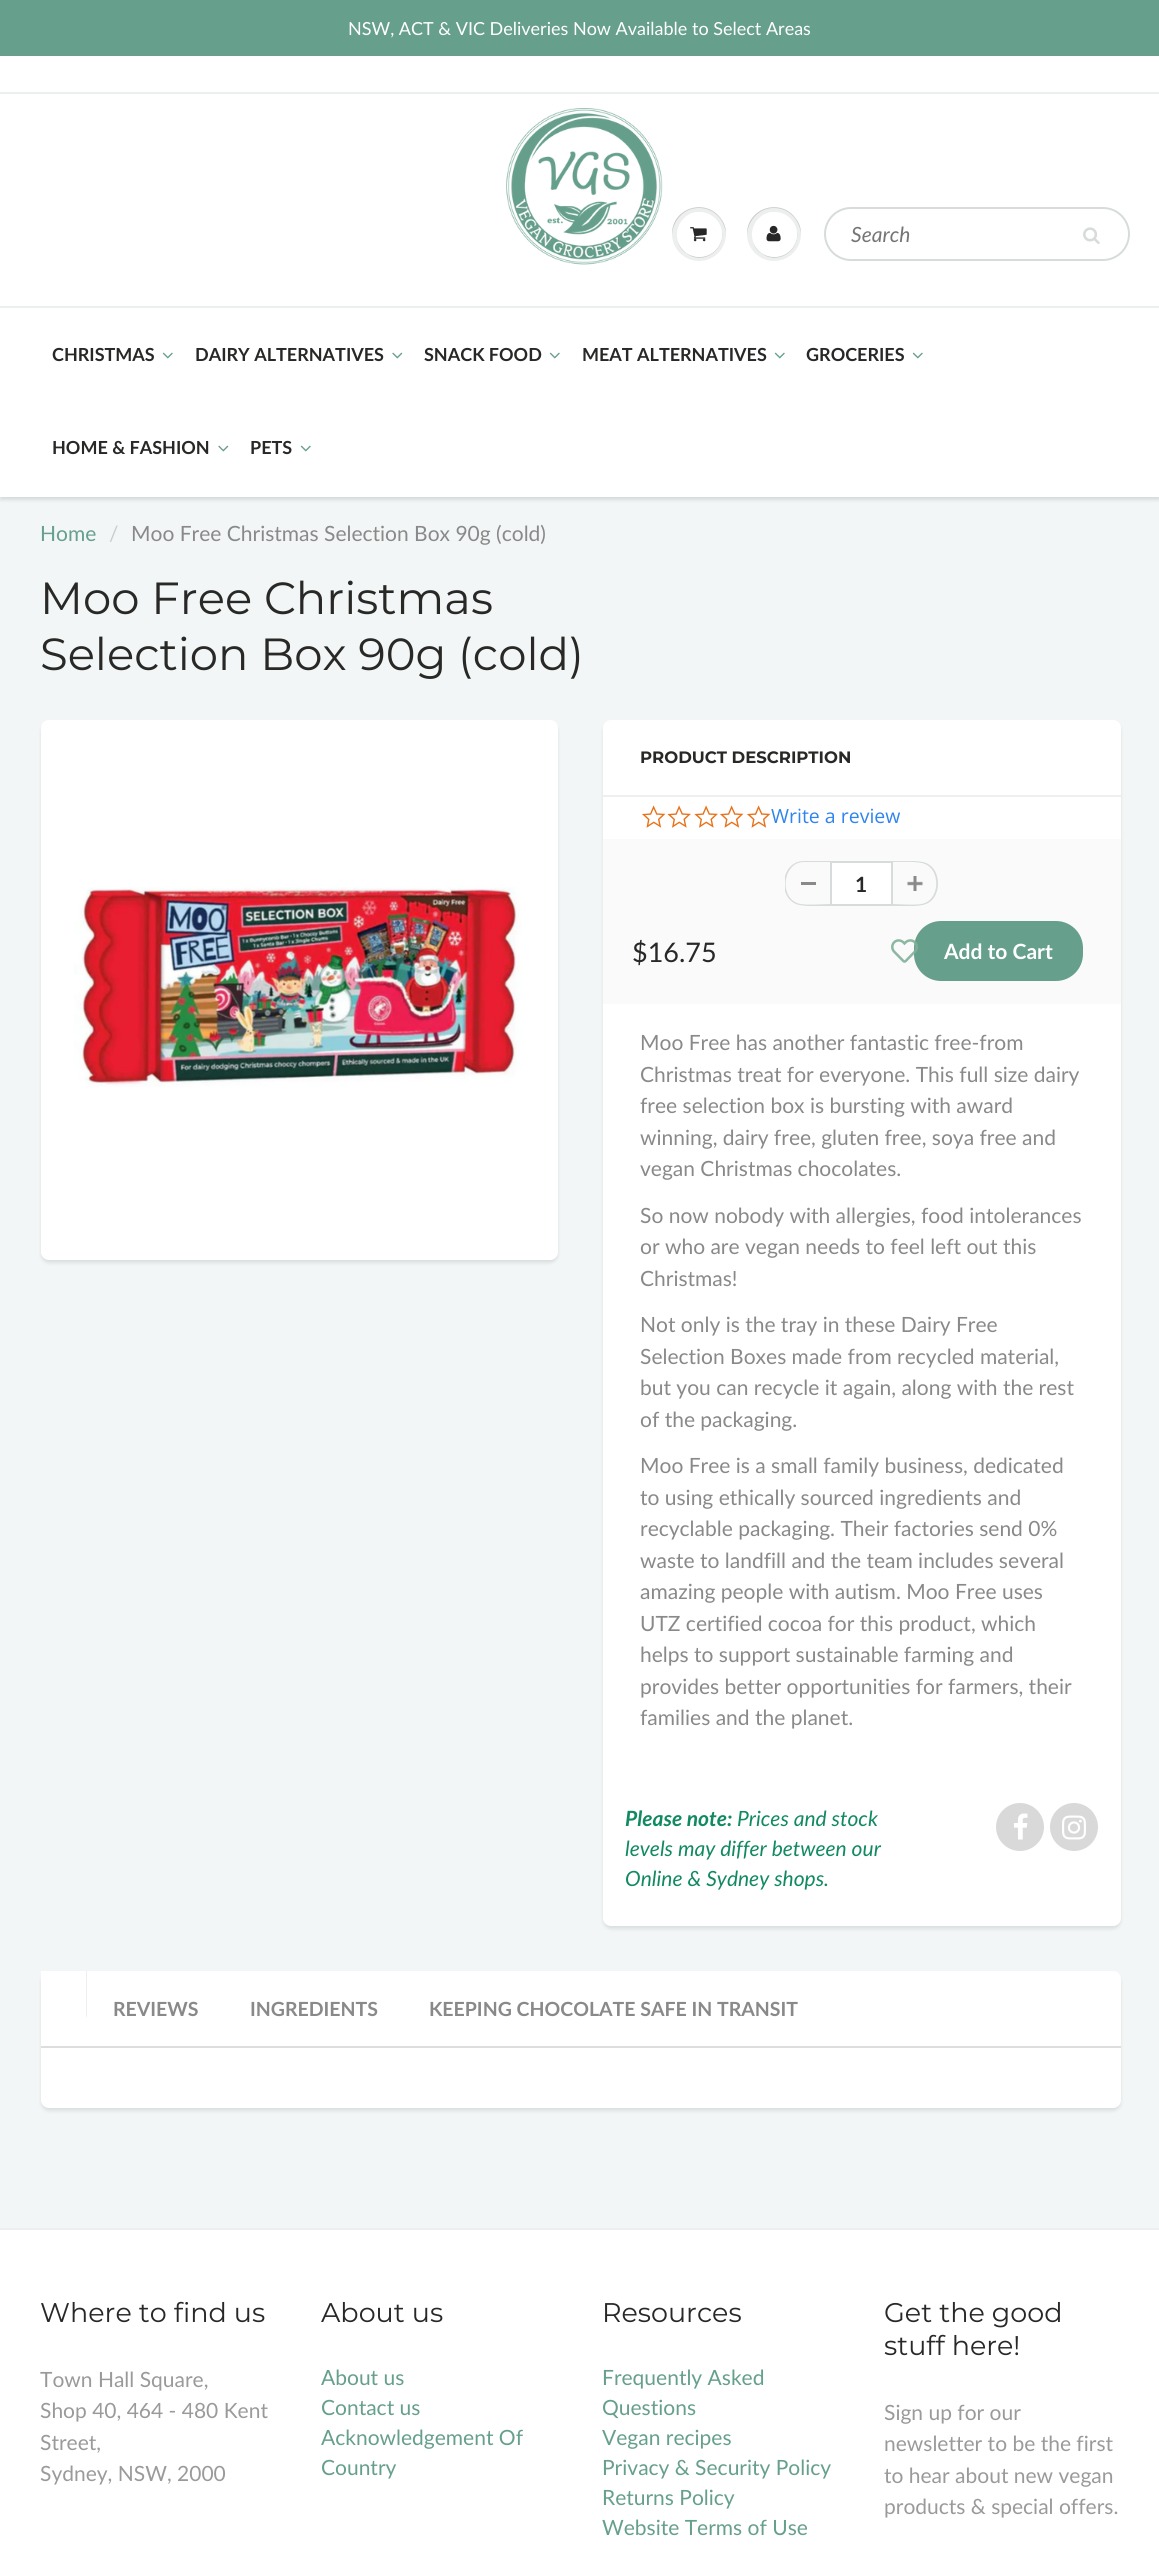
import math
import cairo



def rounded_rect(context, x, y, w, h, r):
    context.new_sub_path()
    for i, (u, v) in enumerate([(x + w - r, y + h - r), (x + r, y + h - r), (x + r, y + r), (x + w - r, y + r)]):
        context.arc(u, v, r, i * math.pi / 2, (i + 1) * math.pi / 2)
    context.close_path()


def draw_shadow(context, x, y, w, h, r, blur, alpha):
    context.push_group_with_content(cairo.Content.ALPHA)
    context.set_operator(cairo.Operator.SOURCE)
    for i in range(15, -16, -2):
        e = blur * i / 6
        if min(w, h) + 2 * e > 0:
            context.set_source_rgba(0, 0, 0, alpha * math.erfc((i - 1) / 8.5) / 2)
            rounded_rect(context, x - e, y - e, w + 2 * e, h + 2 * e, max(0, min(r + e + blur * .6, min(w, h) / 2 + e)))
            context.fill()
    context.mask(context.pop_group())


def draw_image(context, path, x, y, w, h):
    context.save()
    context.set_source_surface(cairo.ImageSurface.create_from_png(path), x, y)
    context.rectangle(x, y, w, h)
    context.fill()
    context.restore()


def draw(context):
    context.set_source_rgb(1, 1, 1)
    context.paint()
    context.set_source_rgb(102 / 255, 159 / 255, 140 / 255)
    context.rectangle(0, 0, 1159, 56)
    context.fill()
    context.set_source_rgb(236 / 255, 239 / 255, 239 / 255)
    context.rectangle(0, 92, 1159, 2)
    context.fill()
    draw_image(context, "images/1.png", 506, 108, 157, 157)
    context.set_source_rgb(243 / 255, 246 / 255, 246 / 255)
    context.rectangle(0, 497, 1159, 1731)
    context.fill()
    context.set_source_rgb(11 / 255, 25 / 255, 28 / 255)
    draw_shadow(context, 0, 309, 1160, 191, 0, 1.5, 0.12)
    context.set_source_rgb(1, 1, 1)
    context.rectangle(0, 308, 1159, 189)
    context.fill()
    context.set_source_rgb(236 / 255, 239 / 255, 239 / 255)
    context.rectangle(0, 306, 1159, 2)
    context.fill()
    context.set_source_rgb(237 / 255, 239 / 255, 239 / 255)
    context.arc(699, 234, 27, 0, 2 * math.pi)
    context.fill()
    context.set_source_rgb(201 / 255, 203 / 255, 203 / 255)
    context.new_path()
    context.move_to(699, 208)
    context.curve_to(714, 208, 725, 220, 726, 235)
    context.curve_to(726, 229, 725, 224, 721, 219)
    context.curve_to(706, 197, 671, 208, 672, 235)
    context.curve_to(673, 220, 684, 208, 699, 208)
    context.close_path()
    context.fill()
    context.new_path()
    context.move_to(678, 242)
    context.curve_to(679, 246, 682, 251, 686, 253)
    context.curve_to(704, 267, 728, 248, 721, 228)
    context.curve_to(729, 255, 688, 269, 678, 242)
    context.close_path()
    context.fill()
    context.set_source_rgb(1, 1, 1)
    context.arc(699.5, 234.5, 22.5, 0, 2 * math.pi)
    context.fill()
    context.new_path()
    context.move_to(699, 213)
    context.curve_to(717, 213, 724, 230, 720, 243)
    context.curve_to(729, 221, 701, 202, 684, 218)
    context.curve_to(688, 215, 693, 213, 699, 213)
    context.close_path()
    context.fill()
    draw_image(context, "images/2.png", 690, 227, 17, 15)
    context.set_source_rgb(237 / 255, 239 / 255, 239 / 255)
    context.arc(774, 234, 27, 0, 2 * math.pi)
    context.fill()
    context.set_source_rgb(201 / 255, 203 / 255, 203 / 255)
    context.new_path()
    context.move_to(774, 208)
    context.curve_to(789, 208, 800, 220, 801, 235)
    context.curve_to(801, 229, 800, 224, 796, 219)
    context.curve_to(781, 197, 746, 208, 747, 235)
    context.curve_to(748, 220, 759, 208, 774, 208)
    context.close_path()
    context.fill()
    context.new_path()
    context.move_to(753, 242)
    context.curve_to(754, 246, 757, 251, 761, 253)
    context.curve_to(779, 267, 803, 248, 796, 228)
    context.curve_to(804, 255, 763, 269, 753, 242)
    context.close_path()
    context.fill()
    context.set_source_rgb(1, 1, 1)
    context.arc(774.5, 234.5, 22.5, 0, 2 * math.pi)
    context.fill()
    context.new_path()
    context.move_to(774, 213)
    context.curve_to(792, 213, 799, 230, 795, 243)
    context.curve_to(804, 221, 776, 202, 759, 218)
    context.curve_to(763, 215, 768, 213, 774, 213)
    context.close_path()
    context.fill()
    draw_image(context, "images/3.png", 766, 225, 15, 17)
    rounded_rect(context, 825, 208, 304, 52, 26)
    context.set_source_rgb(215 / 255, 219 / 255, 219 / 255)
    context.stroke()
    draw_image(context, "images/4.png", 1083, 227, 17, 17)
    draw_image(context, "images/5.png", 162, 352, 11, 7)
    draw_image(context, "images/6.png", 392, 352, 11, 7)
    draw_image(context, "images/5.png", 549, 352, 11, 7)
    draw_image(context, "images/5.png", 774, 352, 11, 7)
    draw_image(context, "images/5.png", 912, 352, 11, 7)
    draw_image(context, "images/6.png", 218, 445, 11, 7)
    draw_image(context, "images/5.png", 300, 445, 11, 7)
    context.set_source_rgb(11 / 255, 25 / 255, 28 / 255)
    draw_shadow(context, 41, 723, 517, 540, 8, 1.5, 0.1)
    context.set_source_rgb(1, 1, 1)
    rounded_rect(context, 41, 720, 517, 540, 8)
    context.fill()
    draw_image(context, "images/7.png", 74, 887, 448, 200)
    context.set_source_rgb(11 / 255, 25 / 255, 28 / 255)
    draw_shadow(context, 603, 723, 518, 1206, 8, 1.5, 0.1)
    context.set_source_rgb(1, 1, 1)
    rounded_rect(context, 603, 720, 518, 1206, 8)
    context.fill()
    context.set_source_rgb(239 / 255, 239 / 255, 239 / 255)
    context.rectangle(603, 795, 518, 2)
    context.fill()
    draw_image(context, "images/8.png", 642, 805, 24, 23)
    draw_image(context, "images/9.png", 667, 805, 24, 23)
    draw_image(context, "images/9.png", 694, 805, 24, 23)
    draw_image(context, "images/8.png", 720, 805, 24, 23)
    draw_image(context, "images/8.png", 747, 805, 24, 23)
    context.set_source_rgb(250 / 255, 250 / 255, 250 / 255)
    context.rectangle(603, 839, 518, 165)
    context.fill()
    context.set_source_rgb(137 / 255, 137 / 255, 137 / 255)
    context.rectangle(801, 882, 15, 3)
    context.fill()
    context.save()
    context.rectangle(785, 861, 153, 45)
    context.clip()
    context.set_source_rgb(215 / 255, 219 / 255, 219 / 255)
    context.set_fill_rule(cairo.FillRule.EVEN_ODD)
    context.new_path()
    context.move_to(804, 861)
    context.line_to(830, 861)
    context.line_to(830, 906)
    context.curve_to(821, 906, 803, 907, 796, 904)
    context.curve_to(777, 896, 781, 861, 804, 861)
    context.close_path()
    context.move_to(804, 862)
    context.line_to(830, 862)
    context.line_to(830, 904)
    context.curve_to(822, 904, 804, 906, 797, 903)
    context.curve_to(779, 896, 783, 862, 804, 862)
    context.close_path()
    context.fill()
    context.restore()
    context.set_source_rgb(1, 1, 1)
    context.rectangle(831, 862, 61, 43)
    context.fill_preserve()
    context.set_source_rgb(215 / 255, 219 / 255, 219 / 255)
    context.stroke()
    draw_image(context, "images/10.png", 907, 876, 16, 15)
    context.save()
    context.rectangle(785, 861, 153, 45)
    context.clip()
    context.set_fill_rule(cairo.FillRule.EVEN_ODD)
    context.new_path()
    context.move_to(892, 861)
    context.curve_to(901, 861, 919, 860, 926, 863)
    context.curve_to(942, 869, 942, 898, 926, 904)
    context.curve_to(919, 907, 901, 906, 892, 906)
    context.close_path()
    context.move_to(892, 862)
    context.curve_to(900, 862, 918, 861, 925, 864)
    context.curve_to(940, 870, 940, 897, 925, 903)
    context.curve_to(918, 906, 900, 904, 892, 904)
    context.close_path()
    context.fill()
    context.restore()
    context.set_source_rgb(102 / 255, 159 / 255, 140 / 255)
    rounded_rect(context, 914, 921, 169, 60, 27)
    context.fill()
    draw_image(context, "images/11.png", 891, 939, 27, 24)
    context.set_source_rgb(217 / 255, 217 / 255, 217 / 255)
    context.arc(1020, 1827, 24, 0, 2 * math.pi)
    context.fill()
    draw_image(context, "images/12.png", 1014, 1813, 14, 27)
    context.arc(1074, 1827, 24, 0, 2 * math.pi)
    context.fill()
    draw_image(context, "images/13.png", 1062, 1815, 24, 25)
    context.set_source_rgb(11 / 255, 25 / 255, 28 / 255)
    draw_shadow(context, 41, 1974, 1080, 137, 8, 1.5, 0.1)
    context.set_source_rgb(1, 1, 1)
    rounded_rect(context, 41, 1971, 1080, 137, 8)
    context.fill()
    context.set_source_rgb(221 / 255, 221 / 255, 221 / 255)
    context.rectangle(41, 2046, 1080, 2)
    context.fill()
    context.set_source_rgb(1, 1, 1)
    context.rectangle(41, 1971, 6, 7)
    context.fill()
    context.set_source_rgb(239 / 255, 239 / 255, 239 / 255)
    context.new_path()
    context.move_to(87, 1971)
    context.line_to(87, 2018)
    context.line_to(86, 2016)
    context.line_to(86, 1971)
    context.close_path()
    context.fill()
    context.set_source_rgb(236 / 255, 239 / 255, 239 / 255)
    context.rectangle(0, 2228, 1159, 2)
    context.fill()
    context.select_font_face("Lato")
    context.set_font_size(18)
    context.set_source_rgb(1, 1, 1)
    context.move_to(348, 35)
    context.show_text("NSW, ACT & VIC Deliveries Now Available to Select Areas")
    context.select_font_face("Lato", cairo.FontSlant.ITALIC)
    context.set_font_size(21)
    context.set_source_rgb(117 / 255, 117 / 255, 117 / 255)
    context.move_to(851, 242)
    context.show_text("Search")
    context.select_font_face("Lato", cairo.FontSlant.NORMAL, cairo.FontWeight.BOLD)
    context.set_font_size(18)
    context.set_source_rgb(40 / 255, 40 / 255, 39 / 255)
    context.move_to(52, 361)
    context.show_text("CHRISTMAS")
    context.move_to(195, 361)
    context.show_text("DAIRY ALTERNATIVES")
    context.move_to(424, 361)
    context.show_text("SNACK FOOD")
    context.move_to(582, 361)
    context.show_text("MEAT ALTERNATIVES")
    context.move_to(806, 361)
    context.show_text("GROCERIES")
    context.move_to(52, 454)
    context.show_text("HOME & FASHION")
    context.move_to(250, 454)
    context.show_text("PETS")
    context.select_font_face("Lato")
    context.set_font_size(21)
    context.set_source_rgb(102 / 255, 159 / 255, 140 / 255)
    context.move_to(40, 541)
    context.show_text("Home")
    context.set_source_rgb(204 / 255, 204 / 255, 204 / 255)
    context.move_to(109, 541)
    context.show_text("/")
    context.set_source_rgb(137 / 255, 137 / 255, 137 / 255)
    context.move_to(131, 541)
    context.show_text("Moo Free Christmas Selection Box 90g (cold)")
    context.select_font_face("Montserrat")
    context.set_font_size(45)
    context.set_source_rgb(40 / 255, 40 / 255, 39 / 255)
    context.move_to(40, 614)
    context.show_text("Moo Free Christmas")
    context.move_to(40, 670)
    context.show_text("Selection Box 90g (cold)")
    context.select_font_face("Montserrat", cairo.FontSlant.NORMAL, cairo.FontWeight.BOLD)
    context.set_font_size(16.5)
    context.move_to(640, 763)
    context.show_text("PRODUCT DESCRIPTION")
    context.select_font_face("Open Sans")
    context.set_font_size(19.5)
    context.set_source_rgb(47 / 255, 132 / 255, 237 / 255)
    context.move_to(771, 823)
    context.show_text("Write a review")
    context.select_font_face("Lato", cairo.FontSlant.NORMAL, cairo.FontWeight.BOLD)
    context.set_font_size(21)
    context.set_source_rgb(40 / 255, 40 / 255, 39 / 255)
    context.move_to(855, 892)
    context.show_text("1")
    context.select_font_face("Lato")
    context.set_font_size(27)
    context.move_to(632, 962)
    context.show_text("$16.75")
    context.select_font_face("Lato", cairo.FontSlant.NORMAL, cairo.FontWeight.BOLD)
    context.set_font_size(21)
    context.set_source_rgb(1, 1, 1)
    context.move_to(944, 959)
    context.show_text("Add to Cart")
    context.select_font_face("Lato")
    context.set_source_rgb(137 / 255, 137 / 255, 137 / 255)
    context.move_to(640, 1050)
    context.show_text("Moo Free has another fantastic free-from")
    context.move_to(640, 1082)
    context.show_text("Christmas treat for everyone. This full size dairy")
    context.move_to(640, 1113)
    context.show_text("free selection box is bursting with award")
    context.move_to(640, 1145)
    context.show_text("winning, dairy free, gluten free, soya free and")
    context.move_to(640, 1176)
    context.show_text("vegan Christmas chocolates.")
    context.move_to(640, 1223)
    context.show_text("So now nobody with allergies, food intolerances")
    context.move_to(640, 1254)
    context.show_text("or who are vegan needs to feel left out this")
    context.move_to(640, 1286)
    context.show_text("Christmas!")
    context.move_to(640, 1332)
    context.show_text("Not only is the tray in these Dairy Free")
    context.move_to(640, 1364)
    context.show_text("Selection Boxes made from recycled material,")
    context.move_to(640, 1395)
    context.show_text("but you can recycle it again, along with the rest")
    context.move_to(640, 1427)
    context.show_text("of the packaging.")
    context.move_to(640, 1473)
    context.show_text("Moo Free is a small family business, dedicated")
    context.move_to(640, 1505)
    context.show_text("to using ethically sourced ingredients and")
    context.move_to(640, 1536)
    context.show_text("recyclable packaging. Their factories send 0%")
    context.move_to(640, 1568)
    context.show_text("waste to landfill and the team includes several")
    context.move_to(640, 1599)
    context.show_text("amazing people with autism. Moo Free uses")
    context.move_to(640, 1631)
    context.show_text("UTZ certified cocoa for this product, which")
    context.move_to(640, 1662)
    context.show_text("helps to support sustainable farming and")
    context.move_to(640, 1694)
    context.show_text("provides better opportunities for farmers, their")
    context.move_to(640, 1725)
    context.show_text("families and the planet.")
    context.select_font_face("Lato", cairo.FontSlant.ITALIC, cairo.FontWeight.BOLD)
    context.set_source_rgb(17 / 255, 137 / 255, 97 / 255)
    context.move_to(625, 1826)
    context.show_text("Please note:")
    context.select_font_face("Lato", cairo.FontSlant.ITALIC)
    context.move_to(737, 1826)
    context.show_text("Prices and stock")
    context.move_to(625, 1856)
    context.show_text("levels may differ between our")
    context.move_to(625, 1886)
    context.show_text("Online & Sydney shops.")
    context.select_font_face("Lato", cairo.FontSlant.NORMAL, cairo.FontWeight.BOLD)
    context.set_font_size(19.5)
    context.set_source_rgb(137 / 255, 137 / 255, 137 / 255)
    context.move_to(113, 2016)
    context.show_text("REVIEWS")
    context.move_to(250, 2016)
    context.show_text("INGREDIENTS")
    context.move_to(429, 2016)
    context.show_text("KEEPING CHOCOLATE SAFE IN TRANSIT")
    context.select_font_face("Montserrat")
    context.set_font_size(27)
    context.set_source_rgb(40 / 255, 40 / 255, 39 / 255)
    context.move_to(40, 2322)
    context.show_text("Where to find us")
    context.select_font_face("Lato")
    context.set_font_size(21)
    context.set_source_rgb(154 / 255, 154 / 255, 154 / 255)
    context.move_to(40, 2387)
    context.show_text("Town Hall Square,")
    context.move_to(40, 2418)
    context.show_text("Shop 40, 464 - 480 Kent")
    context.move_to(40, 2450)
    context.show_text("Street,")
    context.move_to(40, 2481)
    context.show_text("Sydney, NSW, 2000")
    context.select_font_face("Montserrat")
    context.set_font_size(27)
    context.set_source_rgb(40 / 255, 40 / 255, 39 / 255)
    context.move_to(321, 2322)
    context.show_text("About us")
    context.select_font_face("Lato")
    context.set_font_size(21)
    context.set_source_rgb(102 / 255, 159 / 255, 140 / 255)
    context.move_to(321, 2385)
    context.show_text("About us")
    context.move_to(321, 2415)
    context.show_text("Contact us")
    context.move_to(321, 2445)
    context.show_text("Acknowledgement Of")
    context.move_to(321, 2475)
    context.show_text("Country")
    context.select_font_face("Montserrat")
    context.set_font_size(27)
    context.set_source_rgb(40 / 255, 40 / 255, 39 / 255)
    context.move_to(602, 2322)
    context.show_text("Resources")
    context.select_font_face("Lato")
    context.set_font_size(21)
    context.set_source_rgb(102 / 255, 159 / 255, 140 / 255)
    context.move_to(602, 2385)
    context.show_text("Frequently Asked")
    context.move_to(602, 2415)
    context.show_text("Questions")
    context.move_to(602, 2445)
    context.show_text("Vegan recipes")
    context.move_to(602, 2475)
    context.show_text("Privacy & Security Policy")
    context.move_to(602, 2505)
    context.show_text("Returns Policy")
    context.move_to(602, 2535)
    context.show_text("Website Terms of Use")
    context.select_font_face("Montserrat")
    context.set_font_size(27)
    context.set_source_rgb(40 / 255, 40 / 255, 39 / 255)
    context.move_to(884, 2322)
    context.show_text("Get the good")
    context.move_to(884, 2355)
    context.show_text("stuff here!")
    context.select_font_face("Lato")
    context.set_font_size(21)
    context.set_source_rgb(154 / 255, 154 / 255, 154 / 255)
    context.move_to(884, 2420)
    context.show_text("Sign up for our")
    context.move_to(884, 2451)
    context.show_text("newsletter to be the first")
    context.move_to(884, 2483)
    context.show_text("to hear about new vegan")
    context.move_to(884, 2514)
    context.show_text("products & special offers.")


surface = cairo.ImageSurface(cairo.Format.RGB24, 1159, 2555)
context = cairo.Context(surface)
options = cairo.FontOptions()
options.set_hint_metrics(cairo.HintMetrics.OFF)
options.set_hint_style(cairo.HintStyle.NONE)
context.set_font_options(options)
context.set_miter_limit(4)
draw(context)
surface.write_to_png("out.png")
